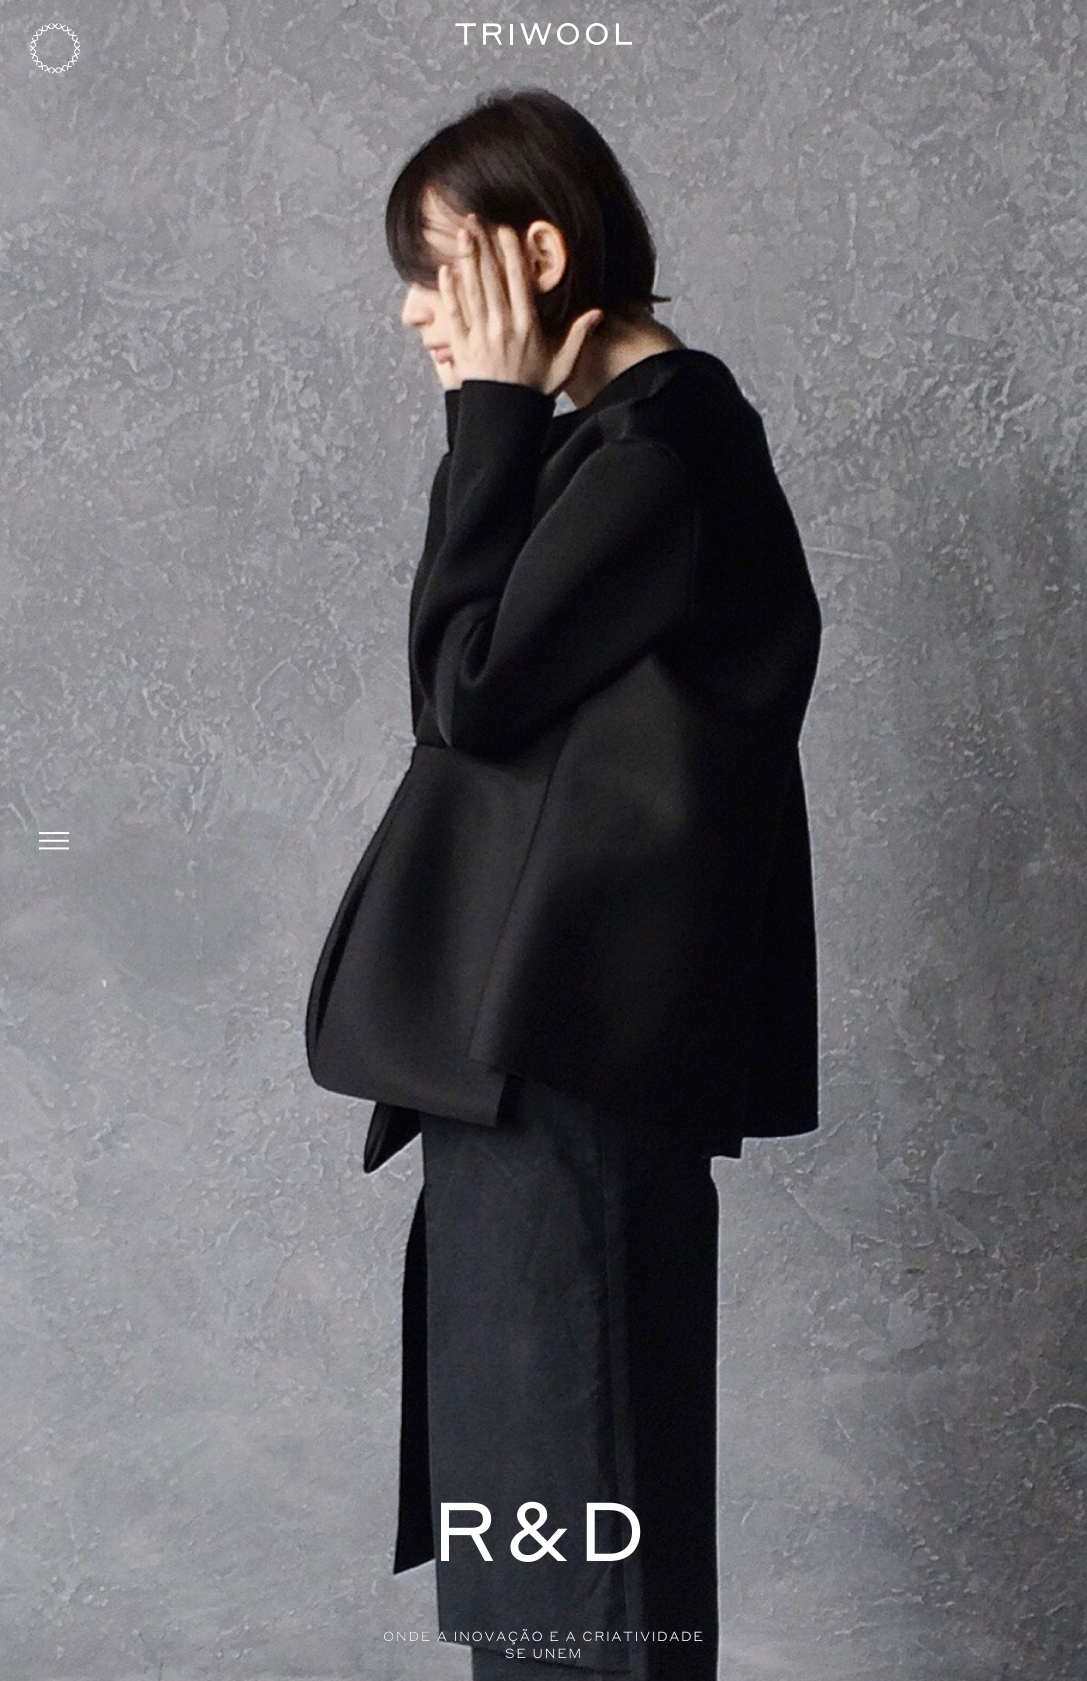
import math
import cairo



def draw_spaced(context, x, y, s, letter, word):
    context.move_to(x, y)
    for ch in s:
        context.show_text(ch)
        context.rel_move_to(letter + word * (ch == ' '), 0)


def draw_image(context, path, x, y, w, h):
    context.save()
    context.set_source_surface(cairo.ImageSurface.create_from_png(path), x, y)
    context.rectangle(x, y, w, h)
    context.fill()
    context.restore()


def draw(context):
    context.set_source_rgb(1, 1, 1)
    context.paint()
    draw_image(context, "images/4.png", 0, 0, 1087, 1681)
    draw_image(context, "images/1.png", 30, 23, 50, 51)
    draw_image(context, "images/2.png", 455, 23, 177, 22)
    draw_image(context, "images/3.png", 39, 832, 30, 18)
    context.select_font_face("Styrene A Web")
    context.set_font_size(82)
    context.set_source_rgb(1, 1, 1)
    draw_spaced(context, 432, 1561, "R&D", 8, 0)
    context.select_font_face("Styrene A Web Light")
    context.set_font_size(13)
    context.set_source_rgb(53 / 255, 55 / 255, 62 / 255)
    draw_spaced(context, 383, 1641, "ONDE", 1.5, 0)
    draw_spaced(context, 606, 1641, "IA", 1.5, 0)
    draw_spaced(context, 651, 1641, "IDADE", 1.5, 0)
    context.set_source_rgb(1, 1, 1)
    draw_spaced(context, 383, 1641, "ONDE A INOVAÇÃO E A CRIATIVIDADE", 1.5, 0)
    draw_spaced(context, 505, 1658, "SE UNEM", 1.5, 0)


surface = cairo.ImageSurface(cairo.Format.RGB24, 1087, 1681)
context = cairo.Context(surface)
options = cairo.FontOptions()
options.set_hint_metrics(cairo.HintMetrics.OFF)
options.set_hint_style(cairo.HintStyle.NONE)
context.set_font_options(options)
context.set_miter_limit(4)
draw(context)
surface.write_to_png("out.png")
